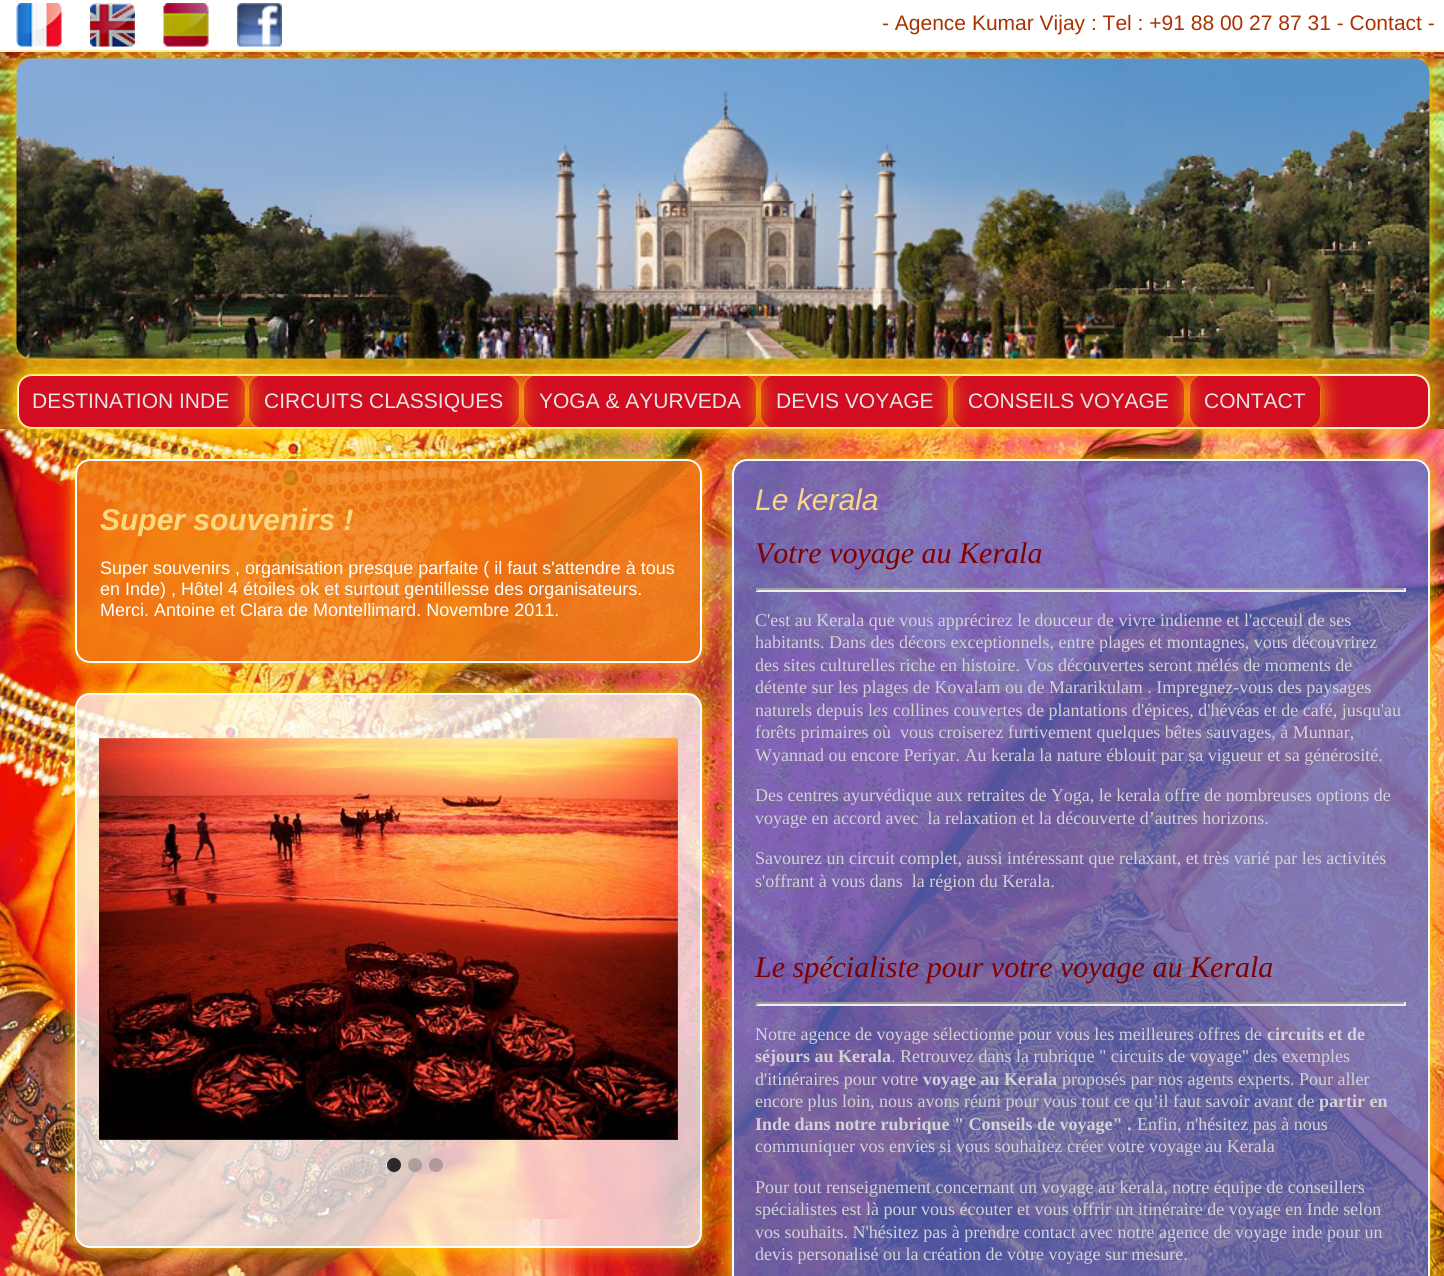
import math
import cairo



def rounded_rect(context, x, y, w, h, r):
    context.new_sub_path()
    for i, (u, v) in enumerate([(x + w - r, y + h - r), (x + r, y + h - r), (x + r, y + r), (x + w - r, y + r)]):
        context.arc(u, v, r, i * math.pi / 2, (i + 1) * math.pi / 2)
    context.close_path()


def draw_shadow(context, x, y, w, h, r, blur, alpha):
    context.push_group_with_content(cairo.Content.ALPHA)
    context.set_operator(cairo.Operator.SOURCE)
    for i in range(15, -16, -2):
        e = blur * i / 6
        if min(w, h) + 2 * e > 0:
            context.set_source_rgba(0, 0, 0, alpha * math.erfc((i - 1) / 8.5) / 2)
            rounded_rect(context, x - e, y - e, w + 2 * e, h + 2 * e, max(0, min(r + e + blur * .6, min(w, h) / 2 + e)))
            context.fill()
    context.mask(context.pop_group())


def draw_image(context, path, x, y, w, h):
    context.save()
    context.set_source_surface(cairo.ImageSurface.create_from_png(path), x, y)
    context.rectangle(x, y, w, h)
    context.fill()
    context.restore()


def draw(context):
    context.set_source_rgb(1, 1, 1)
    context.paint()
    draw_image(context, "images/1.png", 0, 52, 1444, 1224)
    context.set_source_rgb(251 / 255, 242 / 255, 203 / 255)
    context.rectangle(0, 50, 1444, 2)
    context.fill()
    draw_image(context, "images/6.png", 0, 58, 1444, 371)
    context.set_source_rgb(1, 215 / 255, 0)
    draw_shadow(context, 17, 59, 1413, 300, 15, 9, 1)
    context.set_source_rgb(1, 1, 1)
    context.rectangle(11, 38, 1425, 12)
    context.fill()
    draw_image(context, "images/2.png", 16, 3, 46, 44)
    draw_image(context, "images/3.png", 90, 3, 45, 44)
    draw_image(context, "images/4.png", 163, 3, 46, 44)
    draw_image(context, "images/5.png", 237, 3, 45, 44)
    draw_image(context, "images/7.png", 16, 58, 1414, 301)
    context.set_source_rgb(1, 215 / 255, 0)
    draw_shadow(context, 17, 374, 1413, 55, 15, 9, 1)
    context.set_source_rgb(210 / 255, 13 / 255, 33 / 255)
    rounded_rect(context, 18, 375, 1411, 53, 14)
    context.fill_preserve()
    context.set_source_rgb(251 / 255, 242 / 255, 203 / 255)
    context.stroke()
    context.save()
    context.set_fill_rule(cairo.FillRule.EVEN_ODD)
    context.new_path()
    context.move_to(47, 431)
    context.line_to(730, 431)
    context.line_to(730, 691)
    context.line_to(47, 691)
    context.close_path()
    context.move_to(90, 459)
    context.line_to(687, 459)
    context.curve_to(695.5, 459, 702, 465.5, 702, 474)
    context.line_to(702, 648)
    context.curve_to(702, 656.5, 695.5, 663, 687, 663)
    context.line_to(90, 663)
    context.curve_to(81.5, 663, 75, 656.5, 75, 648)
    context.line_to(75, 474)
    context.curve_to(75, 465.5, 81.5, 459, 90, 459)
    context.close_path()
    context.clip()
    context.set_source_rgb(1, 215 / 255, 0)
    draw_shadow(context, 75, 459, 627, 204, 15, 9, 1)
    context.restore()
    draw_image(context, "images/8.png", 75, 459, 627, 204)
    rounded_rect(context, 76, 460, 625, 202, 14)
    context.set_source_rgb(1, 1, 1)
    context.stroke()
    context.save()
    context.set_fill_rule(cairo.FillRule.EVEN_ODD)
    context.new_path()
    context.move_to(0, 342)
    context.line_to(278, 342)
    context.line_to(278, 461)
    context.line_to(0, 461)
    context.close_path()
    context.move_to(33, 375)
    context.line_to(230, 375)
    context.curve_to(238.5, 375, 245, 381.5, 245, 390)
    context.line_to(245, 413)
    context.curve_to(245, 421.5, 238.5, 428, 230, 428)
    context.line_to(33, 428)
    context.curve_to(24.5, 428, 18, 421.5, 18, 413)
    context.line_to(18, 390)
    context.curve_to(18, 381.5, 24.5, 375, 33, 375)
    context.close_path()
    context.clip()
    context.set_source_rgb(1, 215 / 255, 0)
    draw_shadow(context, 18, 375, 227, 53, 15, 10.5, 1)
    context.restore()
    context.save()
    context.set_fill_rule(cairo.FillRule.EVEN_ODD)
    context.new_path()
    context.move_to(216, 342)
    context.line_to(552, 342)
    context.line_to(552, 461)
    context.line_to(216, 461)
    context.close_path()
    context.move_to(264, 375)
    context.line_to(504, 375)
    context.curve_to(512.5, 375, 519, 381.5, 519, 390)
    context.line_to(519, 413)
    context.curve_to(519, 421.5, 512.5, 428, 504, 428)
    context.line_to(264, 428)
    context.curve_to(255.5, 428, 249, 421.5, 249, 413)
    context.line_to(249, 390)
    context.curve_to(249, 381.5, 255.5, 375, 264, 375)
    context.close_path()
    context.clip()
    context.set_source_rgb(1, 215 / 255, 0)
    draw_shadow(context, 249, 375, 270, 53, 15, 10.5, 1)
    context.restore()
    context.save()
    context.set_fill_rule(cairo.FillRule.EVEN_ODD)
    context.new_path()
    context.move_to(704, 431)
    context.line_to(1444, 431)
    context.line_to(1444, 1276)
    context.line_to(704, 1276)
    context.close_path()
    context.move_to(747, 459)
    context.line_to(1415, 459)
    context.curve_to(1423.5, 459, 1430, 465.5, 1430, 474)
    context.line_to(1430, 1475)
    context.curve_to(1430, 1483.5, 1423.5, 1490, 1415, 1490)
    context.line_to(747, 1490)
    context.curve_to(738.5, 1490, 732, 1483.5, 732, 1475)
    context.line_to(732, 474)
    context.curve_to(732, 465.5, 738.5, 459, 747, 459)
    context.close_path()
    context.clip()
    context.set_source_rgb(1, 215 / 255, 0)
    draw_shadow(context, 732, 459, 698, 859, 15, 9, 1)
    context.restore()
    draw_image(context, "images/9.png", 732, 459, 698, 817)
    rounded_rect(context, 733, 460, 696, 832, 14)
    context.stroke()
    context.save()
    context.set_fill_rule(cairo.FillRule.EVEN_ODD)
    context.new_path()
    context.move_to(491, 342)
    context.line_to(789, 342)
    context.line_to(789, 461)
    context.line_to(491, 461)
    context.close_path()
    context.move_to(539, 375)
    context.line_to(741, 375)
    context.curve_to(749.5, 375, 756, 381.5, 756, 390)
    context.line_to(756, 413)
    context.curve_to(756, 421.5, 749.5, 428, 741, 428)
    context.line_to(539, 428)
    context.curve_to(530.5, 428, 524, 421.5, 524, 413)
    context.line_to(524, 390)
    context.curve_to(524, 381.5, 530.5, 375, 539, 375)
    context.close_path()
    context.clip()
    context.set_source_rgb(1, 215 / 255, 0)
    draw_shadow(context, 524, 375, 232, 53, 15, 10.5, 1)
    context.restore()
    context.save()
    context.set_fill_rule(cairo.FillRule.EVEN_ODD)
    context.new_path()
    context.move_to(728, 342)
    context.line_to(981, 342)
    context.line_to(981, 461)
    context.line_to(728, 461)
    context.close_path()
    context.move_to(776, 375)
    context.line_to(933, 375)
    context.curve_to(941.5, 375, 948, 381.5, 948, 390)
    context.line_to(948, 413)
    context.curve_to(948, 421.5, 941.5, 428, 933, 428)
    context.line_to(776, 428)
    context.curve_to(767.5, 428, 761, 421.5, 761, 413)
    context.line_to(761, 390)
    context.curve_to(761, 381.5, 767.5, 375, 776, 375)
    context.close_path()
    context.clip()
    context.set_source_rgb(1, 215 / 255, 0)
    draw_shadow(context, 761, 375, 187, 53, 15, 10.5, 1)
    context.restore()
    context.save()
    context.set_fill_rule(cairo.FillRule.EVEN_ODD)
    context.new_path()
    context.move_to(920, 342)
    context.line_to(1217, 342)
    context.line_to(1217, 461)
    context.line_to(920, 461)
    context.close_path()
    context.move_to(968, 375)
    context.line_to(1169, 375)
    context.curve_to(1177.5, 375, 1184, 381.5, 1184, 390)
    context.line_to(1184, 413)
    context.curve_to(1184, 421.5, 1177.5, 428, 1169, 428)
    context.line_to(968, 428)
    context.curve_to(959.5, 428, 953, 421.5, 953, 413)
    context.line_to(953, 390)
    context.curve_to(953, 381.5, 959.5, 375, 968, 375)
    context.close_path()
    context.clip()
    context.set_source_rgb(1, 215 / 255, 0)
    draw_shadow(context, 953, 375, 231, 53, 15, 10.5, 1)
    context.restore()
    context.save()
    context.set_fill_rule(cairo.FillRule.EVEN_ODD)
    context.new_path()
    context.move_to(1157, 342)
    context.line_to(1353, 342)
    context.line_to(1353, 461)
    context.line_to(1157, 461)
    context.close_path()
    context.move_to(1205, 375)
    context.line_to(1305, 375)
    context.curve_to(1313.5, 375, 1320, 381.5, 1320, 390)
    context.line_to(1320, 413)
    context.curve_to(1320, 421.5, 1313.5, 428, 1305, 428)
    context.line_to(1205, 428)
    context.curve_to(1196.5, 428, 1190, 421.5, 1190, 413)
    context.line_to(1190, 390)
    context.curve_to(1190, 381.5, 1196.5, 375, 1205, 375)
    context.close_path()
    context.clip()
    context.set_source_rgb(1, 215 / 255, 0)
    draw_shadow(context, 1190, 375, 130, 53, 15, 10.5, 1)
    context.restore()
    context.set_source_rgb(159 / 255, 159 / 255, 159 / 255)
    context.rectangle(756, 588, 650, 2)
    context.fill()
    context.set_source_rgb(238 / 255, 238 / 255, 238 / 255)
    context.rectangle(1404, 588, 2, 3)
    context.fill()
    context.rectangle(756, 590, 650, 2)
    context.fill()
    context.set_source_rgb(159 / 255, 159 / 255, 159 / 255)
    context.rectangle(756, 588, 2, 3)
    context.fill()
    context.rectangle(756, 1002, 650, 2)
    context.fill()
    context.set_source_rgb(238 / 255, 238 / 255, 238 / 255)
    context.rectangle(1404, 1002, 2, 3)
    context.fill()
    context.rectangle(756, 1004, 650, 2)
    context.fill()
    context.set_source_rgb(159 / 255, 159 / 255, 159 / 255)
    context.rectangle(756, 1002, 2, 3)
    context.fill()
    context.save()
    context.set_fill_rule(cairo.FillRule.EVEN_ODD)
    context.new_path()
    context.move_to(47, 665)
    context.line_to(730, 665)
    context.line_to(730, 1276)
    context.line_to(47, 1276)
    context.close_path()
    context.move_to(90, 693)
    context.line_to(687, 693)
    context.curve_to(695.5, 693, 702, 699.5, 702, 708)
    context.line_to(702, 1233)
    context.curve_to(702, 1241.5, 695.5, 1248, 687, 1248)
    context.line_to(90, 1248)
    context.curve_to(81.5, 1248, 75, 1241.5, 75, 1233)
    context.line_to(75, 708)
    context.curve_to(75, 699.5, 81.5, 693, 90, 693)
    context.close_path()
    context.clip()
    context.set_source_rgb(1, 215 / 255, 0)
    draw_shadow(context, 75, 693, 627, 555, 15, 9, 1)
    context.restore()
    draw_image(context, "images/10.png", 75, 693, 627, 555)
    rounded_rect(context, 76, 694, 625, 553, 14)
    context.set_source_rgb(1, 1, 1)
    context.stroke()
    draw_image(context, "images/11.png", 99, 738, 579, 402)
    context.set_source_rgba(0, 0, 0, 0.8)
    context.arc(394, 1165, 7, 0, 2 * math.pi)
    context.fill()
    context.set_source_rgba(0, 0, 0, 0.2)
    context.arc(415, 1165, 7, 0, 2 * math.pi)
    context.fill()
    context.arc(436, 1165, 7, 0, 2 * math.pi)
    context.fill()
    context.select_font_face("Liberation Sans")
    context.set_font_size(21)
    context.set_source_rgb(168 / 255, 50 / 255, 0)
    context.move_to(882, 30)
    context.show_text("- Agence Kumar Vijay : Tel : +91 88 00 27 87 31 - Contact -")
    context.set_source_rgb(231 / 255, 229 / 255, 229 / 255)
    context.move_to(32, 408)
    context.show_text("DESTINATION INDE")
    context.move_to(264, 408)
    context.show_text("CIRCUITS CLASSIQUES")
    context.move_to(539, 408)
    context.show_text("YOGA & AYURVEDA")
    context.move_to(776, 408)
    context.show_text("DEVIS VOYAGE")
    context.move_to(968, 408)
    context.show_text("CONSEILS VOYAGE")
    context.move_to(1204, 408)
    context.show_text("CONTACT")
    context.select_font_face("Liberation Sans", cairo.FontSlant.ITALIC, cairo.FontWeight.BOLD)
    context.set_font_size(30)
    context.set_source_rgb(250 / 255, 216 / 255, 129 / 255)
    context.move_to(100, 530)
    context.show_text("Super souvenirs !")
    context.select_font_face("Liberation Sans")
    context.set_font_size(18)
    context.set_source_rgb(1, 1, 1)
    context.move_to(100, 574)
    context.show_text("Super souvenirs , organisation presque parfaite ( il faut s'attendre à tous")
    context.move_to(100, 595)
    context.show_text("en Inde) , Hôtel 4 étoiles ok et surtout gentillesse des organisateurs.")
    context.move_to(100, 616)
    context.show_text("Merci. Antoine et Clara de Montellimard. Novembre 2011.")
    context.select_font_face("Liberation Sans", cairo.FontSlant.ITALIC)
    context.set_font_size(30)
    context.set_source_rgb(250 / 255, 216 / 255, 129 / 255)
    context.move_to(755, 510)
    context.show_text("Le kerala")
    context.select_font_face("Liberation Serif", cairo.FontSlant.ITALIC)
    context.set_source_rgb(128 / 255, 0, 0)
    context.move_to(755, 563)
    context.show_text("Votre voyage au Kerala")
    context.select_font_face("Liberation Serif")
    context.set_font_size(18)
    context.set_source_rgb(211 / 255, 211 / 255, 211 / 255)
    context.move_to(755, 626)
    context.show_text("C'est au Kerala que vous apprécirez le douceur de vivre indienne et l'acceuil de ses")
    context.move_to(755, 648)
    context.show_text("habitants. Dans des décors exceptionnels, entre plages et montagnes, vous découvrirez")
    context.move_to(755, 671)
    context.show_text("des sites culturelles riche en histoire. Vos découvertes seront mélés de moments de")
    context.move_to(755, 693)
    context.show_text("détente sur les plages de Kovalam ou de Mararikulam . Impregnez-vous des paysages")
    context.move_to(755, 716)
    context.show_text("naturels depuis l")
    context.select_font_face("Liberation Serif", cairo.FontSlant.ITALIC)
    context.move_to(873, 716)
    context.show_text("es")
    context.select_font_face("Liberation Serif")
    context.move_to(893, 716)
    context.show_text("collines couvertes de plantations d'épices, d'hévéas et de café, jusqu'au")
    context.move_to(755, 738)
    context.show_text("forêts primaires où  vous croiserez furtivement quelques bêtes sauvages, à Munnar,")
    context.move_to(755, 761)
    context.show_text("Wyannad ou encore Periyar. Au kerala la nature éblouit par sa vigueur et sa générosité.")
    context.move_to(755, 801)
    context.show_text("Des centres ayurvédique aux retraites de Yoga, le kerala offre de nombreuses options de")
    context.move_to(755, 824)
    context.show_text("voyage en accord avec  la relaxation et la découverte d’autres horizons.")
    context.move_to(755, 864)
    context.show_text("Savourez un circuit complet, aussi intéressant que relaxant, et très varié par les activités")
    context.move_to(755, 887)
    context.show_text("s'offrant à vous dans  la région du Kerala.")
    context.select_font_face("Liberation Serif", cairo.FontSlant.ITALIC)
    context.set_font_size(30)
    context.set_source_rgb(128 / 255, 0, 0)
    context.move_to(755, 977)
    context.show_text("Le spécialiste pour votre voyage au Kerala")
    context.select_font_face("Liberation Serif")
    context.set_font_size(18)
    context.set_source_rgb(211 / 255, 211 / 255, 211 / 255)
    context.move_to(755, 1040)
    context.show_text("Notre agence de voyage sélectionne pour vous les meilleures offres de")
    context.select_font_face("Liberation Serif", cairo.FontSlant.NORMAL, cairo.FontWeight.BOLD)
    context.move_to(1267, 1040)
    context.show_text("circuits et de")
    context.move_to(755, 1062)
    context.show_text("séjours au Kerala")
    context.select_font_face("Liberation Serif")
    context.move_to(891, 1062)
    context.show_text(". Retrouvez dans la rubrique \" circuits de voyage\" des exemples")
    context.move_to(755, 1085)
    context.show_text("d'itinéraires pour votre")
    context.select_font_face("Liberation Serif", cairo.FontSlant.NORMAL, cairo.FontWeight.BOLD)
    context.move_to(923, 1085)
    context.show_text("voyage au Kerala")
    context.select_font_face("Liberation Serif")
    context.move_to(1062, 1085)
    context.show_text("proposés par nos agents experts. Pour aller")
    context.move_to(755, 1107)
    context.show_text("encore plus loin, nous avons réuni pour vous tout ce qu’il faut savoir avant de")
    context.select_font_face("Liberation Serif", cairo.FontSlant.NORMAL, cairo.FontWeight.BOLD)
    context.move_to(1319, 1107)
    context.show_text("partir en")
    context.move_to(755, 1130)
    context.show_text("Inde dans notre rubrique \" Conseils de voyage\" .")
    context.select_font_face("Liberation Serif")
    context.move_to(1137, 1130)
    context.show_text("Enfin, n'hésitez pas à nous")
    context.move_to(755, 1152)
    context.show_text("communiquer vos envies si vous souhaitez créer votre voyage au Kerala")
    context.move_to(755, 1193)
    context.show_text("Pour tout renseignement concernant un voyage au kerala, notre équipe de conseillers")
    context.move_to(755, 1215)
    context.show_text("spécialistes est là pour vous écouter et vous offrir un itinéraire de voyage en Inde selon")
    context.move_to(755, 1238)
    context.show_text("vos souhaits. N'hésitez pas à prendre contact avec notre agence de voyage inde pour un")
    context.move_to(755, 1260)
    context.show_text("devis personalisé ou la création de votre voyage sur mesure.")


surface = cairo.ImageSurface(cairo.Format.RGB24, 1444, 1276)
context = cairo.Context(surface)
options = cairo.FontOptions()
options.set_hint_metrics(cairo.HintMetrics.OFF)
options.set_hint_style(cairo.HintStyle.NONE)
context.set_font_options(options)
context.set_miter_limit(4)
draw(context)
surface.write_to_png("out.png")
